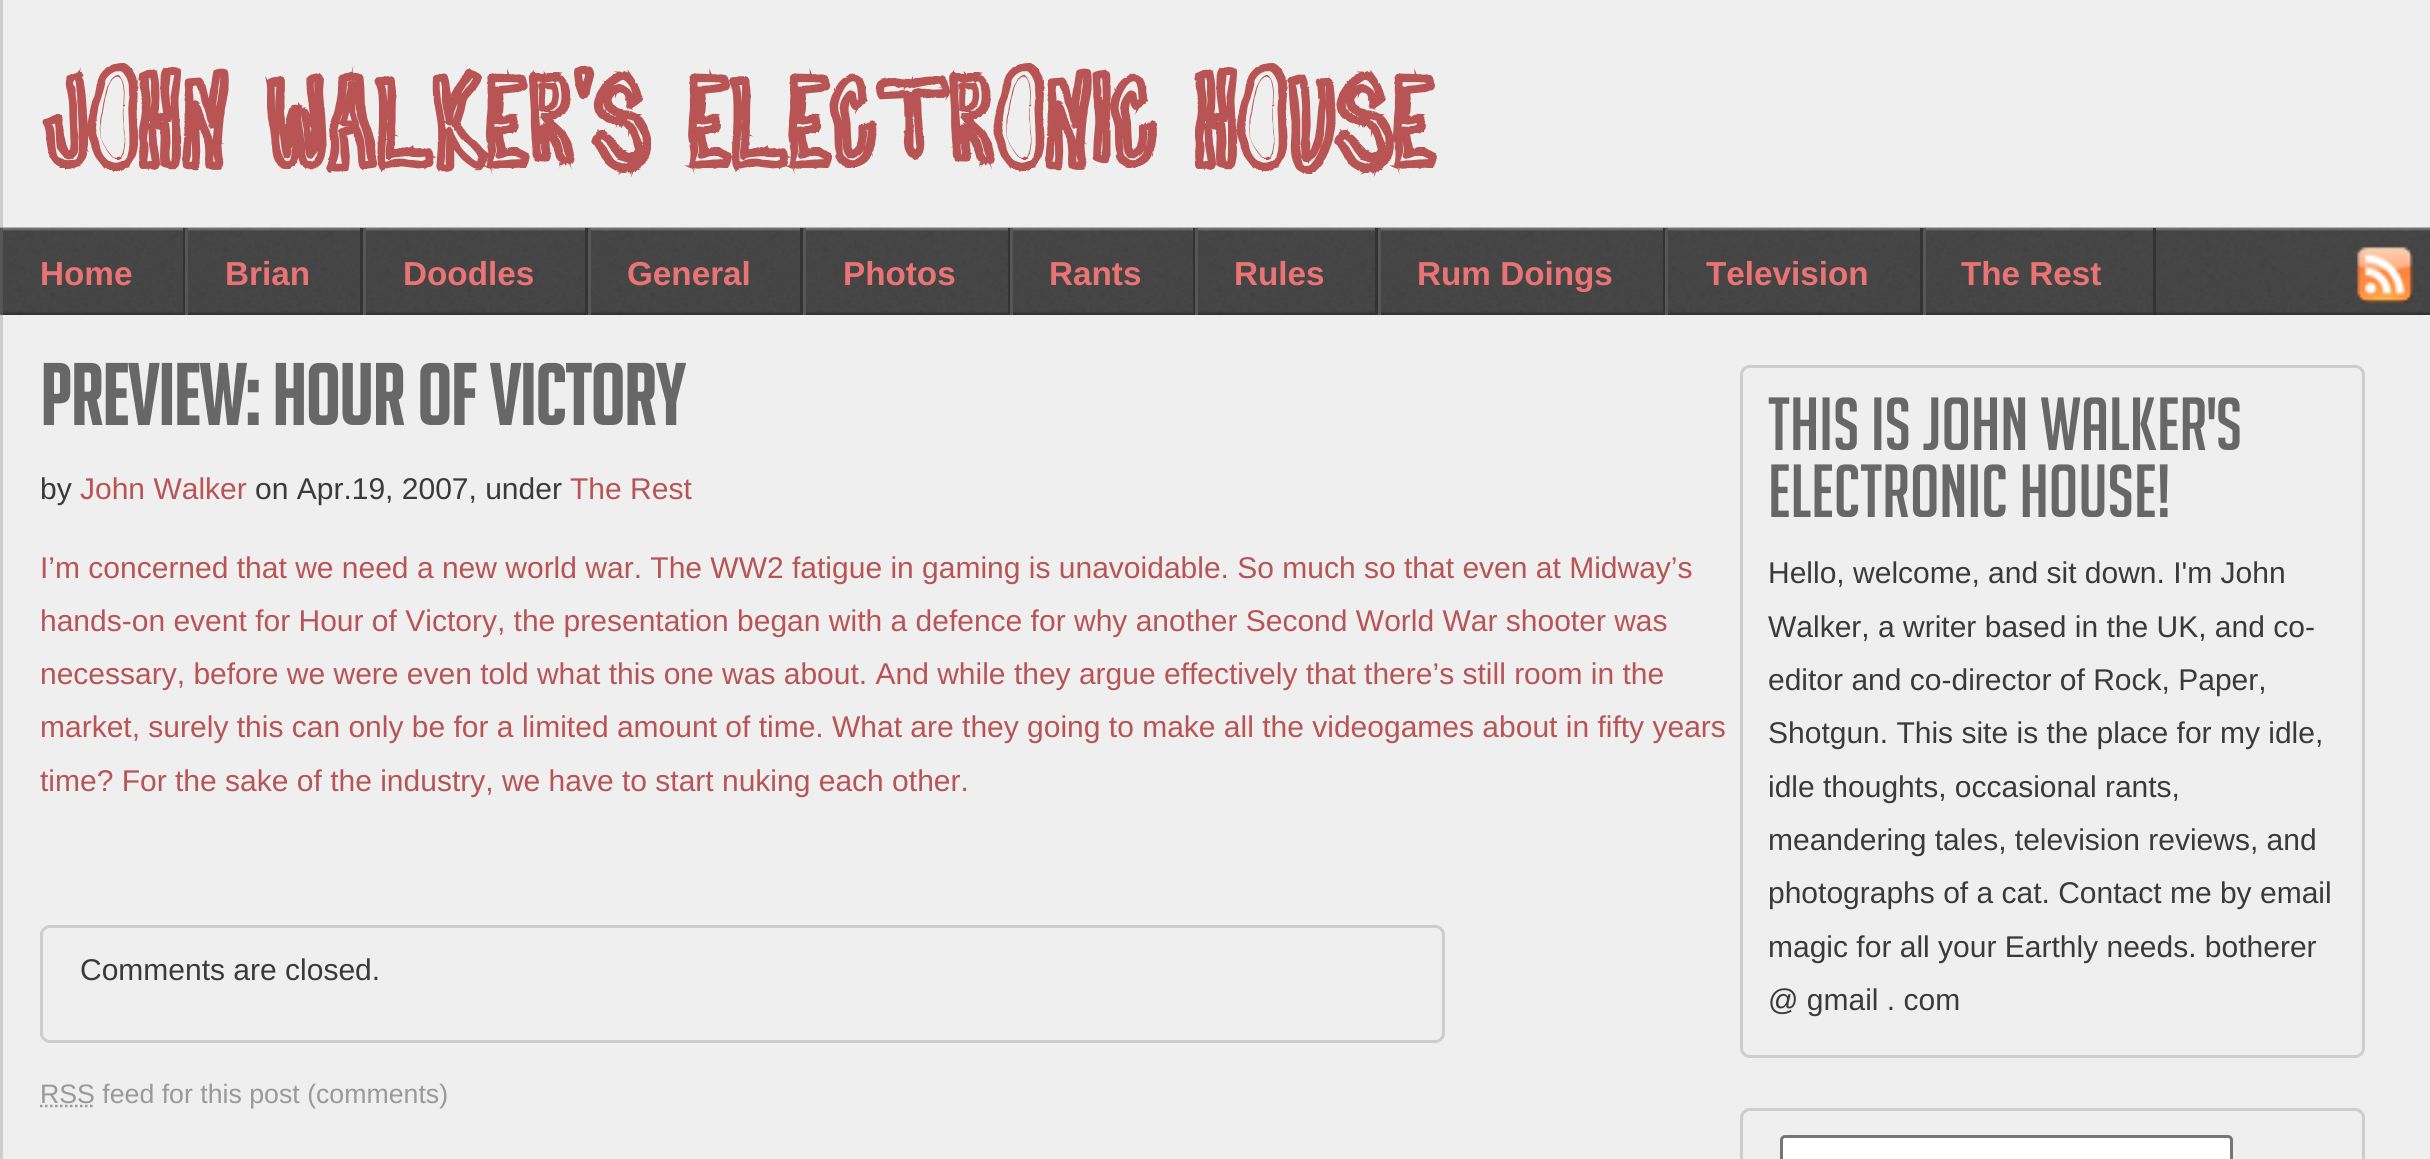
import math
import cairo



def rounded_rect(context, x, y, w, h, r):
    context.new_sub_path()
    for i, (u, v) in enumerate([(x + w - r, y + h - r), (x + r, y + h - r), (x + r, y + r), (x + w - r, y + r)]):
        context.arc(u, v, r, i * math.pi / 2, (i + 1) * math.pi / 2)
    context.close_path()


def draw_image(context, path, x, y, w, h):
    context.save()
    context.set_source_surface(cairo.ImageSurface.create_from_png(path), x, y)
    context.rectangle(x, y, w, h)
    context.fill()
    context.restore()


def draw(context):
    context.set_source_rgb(1, 1, 1)
    context.paint()
    draw_image(context, "images/1.png", 0, 0, 1, 1)
    context.set_source_rgb(239 / 255, 239 / 255, 239 / 255)
    context.rectangle(1.5, -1.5, 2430, 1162)
    context.fill_preserve()
    context.set_source_rgb(205 / 255, 205 / 255, 205 / 255)
    context.set_line_width(3)
    context.stroke()
    draw_image(context, "images/2.png", 0, 227, 2430, 88)
    context.set_source_rgb(51 / 255, 51 / 255, 51 / 255)
    context.rectangle(183, 228, 2, 87)
    context.fill()
    context.set_source_rgb(86 / 255, 86 / 255, 86 / 255)
    context.rectangle(0, 228, 3, 87)
    context.fill()
    context.set_source_rgb(51 / 255, 51 / 255, 51 / 255)
    context.rectangle(360, 228, 3, 87)
    context.fill()
    context.set_source_rgb(86 / 255, 86 / 255, 86 / 255)
    context.rectangle(185, 228, 3, 87)
    context.fill()
    context.set_source_rgb(51 / 255, 51 / 255, 51 / 255)
    context.rectangle(585, 228, 3, 87)
    context.fill()
    context.set_source_rgb(86 / 255, 86 / 255, 86 / 255)
    context.rectangle(363, 228, 3, 87)
    context.fill()
    context.set_source_rgb(51 / 255, 51 / 255, 51 / 255)
    context.rectangle(800, 228, 3, 87)
    context.fill()
    context.set_source_rgb(86 / 255, 86 / 255, 86 / 255)
    context.rectangle(588, 228, 3, 87)
    context.fill()
    context.set_source_rgb(51 / 255, 51 / 255, 51 / 255)
    context.rectangle(1008, 228, 2, 87)
    context.fill()
    context.set_source_rgb(86 / 255, 86 / 255, 86 / 255)
    context.rectangle(803, 228, 3, 87)
    context.fill()
    context.set_source_rgb(51 / 255, 51 / 255, 51 / 255)
    context.rectangle(1193, 228, 2, 87)
    context.fill()
    context.set_source_rgb(86 / 255, 86 / 255, 86 / 255)
    context.rectangle(1010, 228, 3, 87)
    context.fill()
    context.set_source_rgb(51 / 255, 51 / 255, 51 / 255)
    context.rectangle(1375, 228, 3, 87)
    context.fill()
    context.set_source_rgb(86 / 255, 86 / 255, 86 / 255)
    context.rectangle(1195, 228, 3, 87)
    context.fill()
    context.set_source_rgb(51 / 255, 51 / 255, 51 / 255)
    context.rectangle(1663, 228, 2, 87)
    context.fill()
    context.set_source_rgb(86 / 255, 86 / 255, 86 / 255)
    context.rectangle(1378, 228, 3, 87)
    context.fill()
    context.set_source_rgb(51 / 255, 51 / 255, 51 / 255)
    context.rectangle(1920, 228, 3, 87)
    context.fill()
    context.set_source_rgb(86 / 255, 86 / 255, 86 / 255)
    context.rectangle(1665, 228, 3, 87)
    context.fill()
    context.set_source_rgb(51 / 255, 51 / 255, 51 / 255)
    context.rectangle(2153, 228, 3, 87)
    context.fill()
    context.set_source_rgb(86 / 255, 86 / 255, 86 / 255)
    context.rectangle(1923, 228, 3, 87)
    context.fill()
    draw_image(context, "images/3.png", 2356, 246, 58, 58)
    rounded_rect(context, 41.5, 926.5, 1402, 115, 8.5)
    context.set_source_rgb(205 / 255, 205 / 255, 205 / 255)
    context.stroke()
    context.new_path()
    context.move_to(40, 1106)
    context.line_to(95, 1106)
    context.set_source_rgb(153 / 255, 153 / 255, 153 / 255)
    context.set_line_width(2.5)
    context.set_dash([2.5, 2.5])
    context.stroke()
    rounded_rect(context, 1741.5, 366.5, 622, 690, 8.5)
    context.set_source_rgb(205 / 255, 205 / 255, 205 / 255)
    context.set_line_width(3)
    context.set_dash([])
    context.stroke()
    rounded_rect(context, 1741.5, 1109.5, 622, 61, 8.5)
    context.stroke()
    context.set_source_rgb(1, 1, 1)
    rounded_rect(context, 1781.5, 1136.5, 450, 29, 3.5)
    context.fill_preserve()
    context.set_source_rgb(118 / 255, 118 / 255, 118 / 255)
    context.stroke()
    context.select_font_face("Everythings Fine", cairo.FontSlant.NORMAL, cairo.FontWeight.BOLD)
    context.set_font_size(125)
    context.set_source_rgb(184 / 255, 84 / 255, 84 / 255)
    context.move_to(40, 168)
    context.show_text("John Walker's Electronic House")
    context.select_font_face("Liberation Sans", cairo.FontSlant.NORMAL, cairo.FontWeight.BOLD)
    context.set_font_size(33.25)
    context.set_source_rgb(234 / 255, 115 / 255, 115 / 255)
    context.move_to(40, 285)
    context.show_text("Home")
    context.move_to(225, 285)
    context.show_text("Brian")
    context.move_to(403, 285)
    context.show_text("Doodles")
    context.move_to(627, 285)
    context.show_text("General")
    context.move_to(843, 285)
    context.show_text("Photos")
    context.move_to(1049, 285)
    context.show_text("Rants")
    context.move_to(1234, 285)
    context.show_text("Rules")
    context.move_to(1417, 285)
    context.show_text("Rum Doings")
    context.move_to(1706, 285)
    context.show_text("Television")
    context.move_to(1961, 285)
    context.show_text("The Rest")
    context.select_font_face("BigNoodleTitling", cairo.FontSlant.NORMAL, cairo.FontWeight.BOLD)
    context.set_font_size(83.25)
    context.set_source_rgb(103 / 255, 103 / 255, 103 / 255)
    context.move_to(40, 425)
    context.show_text("Preview: Hour of Victory")
    context.select_font_face("Liberation Sans")
    context.set_font_size(30)
    context.set_source_rgb(58 / 255, 58 / 255, 58 / 255)
    context.move_to(40, 499)
    context.show_text("by")
    context.set_source_rgb(184 / 255, 84 / 255, 84 / 255)
    context.move_to(80, 499)
    context.show_text("John Walker")
    context.set_source_rgb(58 / 255, 58 / 255, 58 / 255)
    context.move_to(255, 499)
    context.show_text("on Apr.19, 2007, under")
    context.set_source_rgb(184 / 255, 84 / 255, 84 / 255)
    context.move_to(570, 499)
    context.show_text("The Rest")
    context.move_to(40, 578)
    context.show_text("I’m concerned that we need a new world war. The WW2 fatigue in gaming is unavoidable. So much so that even at Midway’s")
    context.move_to(40, 631)
    context.show_text("hands-on event for Hour of Victory, the presentation began with a defence for why another Second World War shooter was")
    context.move_to(40, 684)
    context.show_text("necessary, before we were even told what this one was about. And while they argue effectively that there’s still room in the")
    context.move_to(40, 737)
    context.show_text("market, surely this can only be for a limited amount of time. What are they going to make all the videogames about in fifty years")
    context.move_to(40, 791)
    context.show_text("time? For the sake of the industry, we have to start nuking each other.")
    context.set_source_rgb(58 / 255, 58 / 255, 58 / 255)
    context.move_to(80, 980)
    context.show_text("Comments are closed.")
    context.set_font_size(26.7)
    context.set_source_rgb(153 / 255, 153 / 255, 153 / 255)
    context.move_to(40, 1103)
    context.show_text("RSS feed for this post (comments)")
    context.select_font_face("BigNoodleTitling")
    context.set_font_size(73.25)
    context.set_source_rgb(103 / 255, 103 / 255, 103 / 255)
    context.move_to(1768, 450)
    context.show_text("This is John Walker's")
    context.move_to(1768, 517)
    context.show_text("Electronic House!")
    context.select_font_face("Liberation Sans")
    context.set_font_size(30)
    context.set_source_rgb(58 / 255, 58 / 255, 58 / 255)
    context.move_to(1768, 583)
    context.show_text("Hello, welcome, and sit down. I'm John")
    context.move_to(1768, 637)
    context.show_text("Walker, a writer based in the UK, and co-")
    context.move_to(1768, 690)
    context.show_text("editor and co-director of Rock, Paper,")
    context.move_to(1768, 743)
    context.show_text("Shotgun. This site is the place for my idle,")
    context.move_to(1768, 797)
    context.show_text("idle thoughts, occasional rants,")
    context.move_to(1768, 850)
    context.show_text("meandering tales, television reviews, and")
    context.move_to(1768, 903)
    context.show_text("photographs of a cat. Contact me by email")
    context.move_to(1768, 957)
    context.show_text("magic for all your Earthly needs. botherer")
    context.move_to(1768, 1010)
    context.show_text("@ gmail . com")


surface = cairo.ImageSurface(cairo.Format.RGB24, 2430, 1159)
context = cairo.Context(surface)
options = cairo.FontOptions()
options.set_hint_metrics(cairo.HintMetrics.OFF)
options.set_hint_style(cairo.HintStyle.NONE)
context.set_font_options(options)
context.set_miter_limit(4)
draw(context)
surface.write_to_png("out.png")
